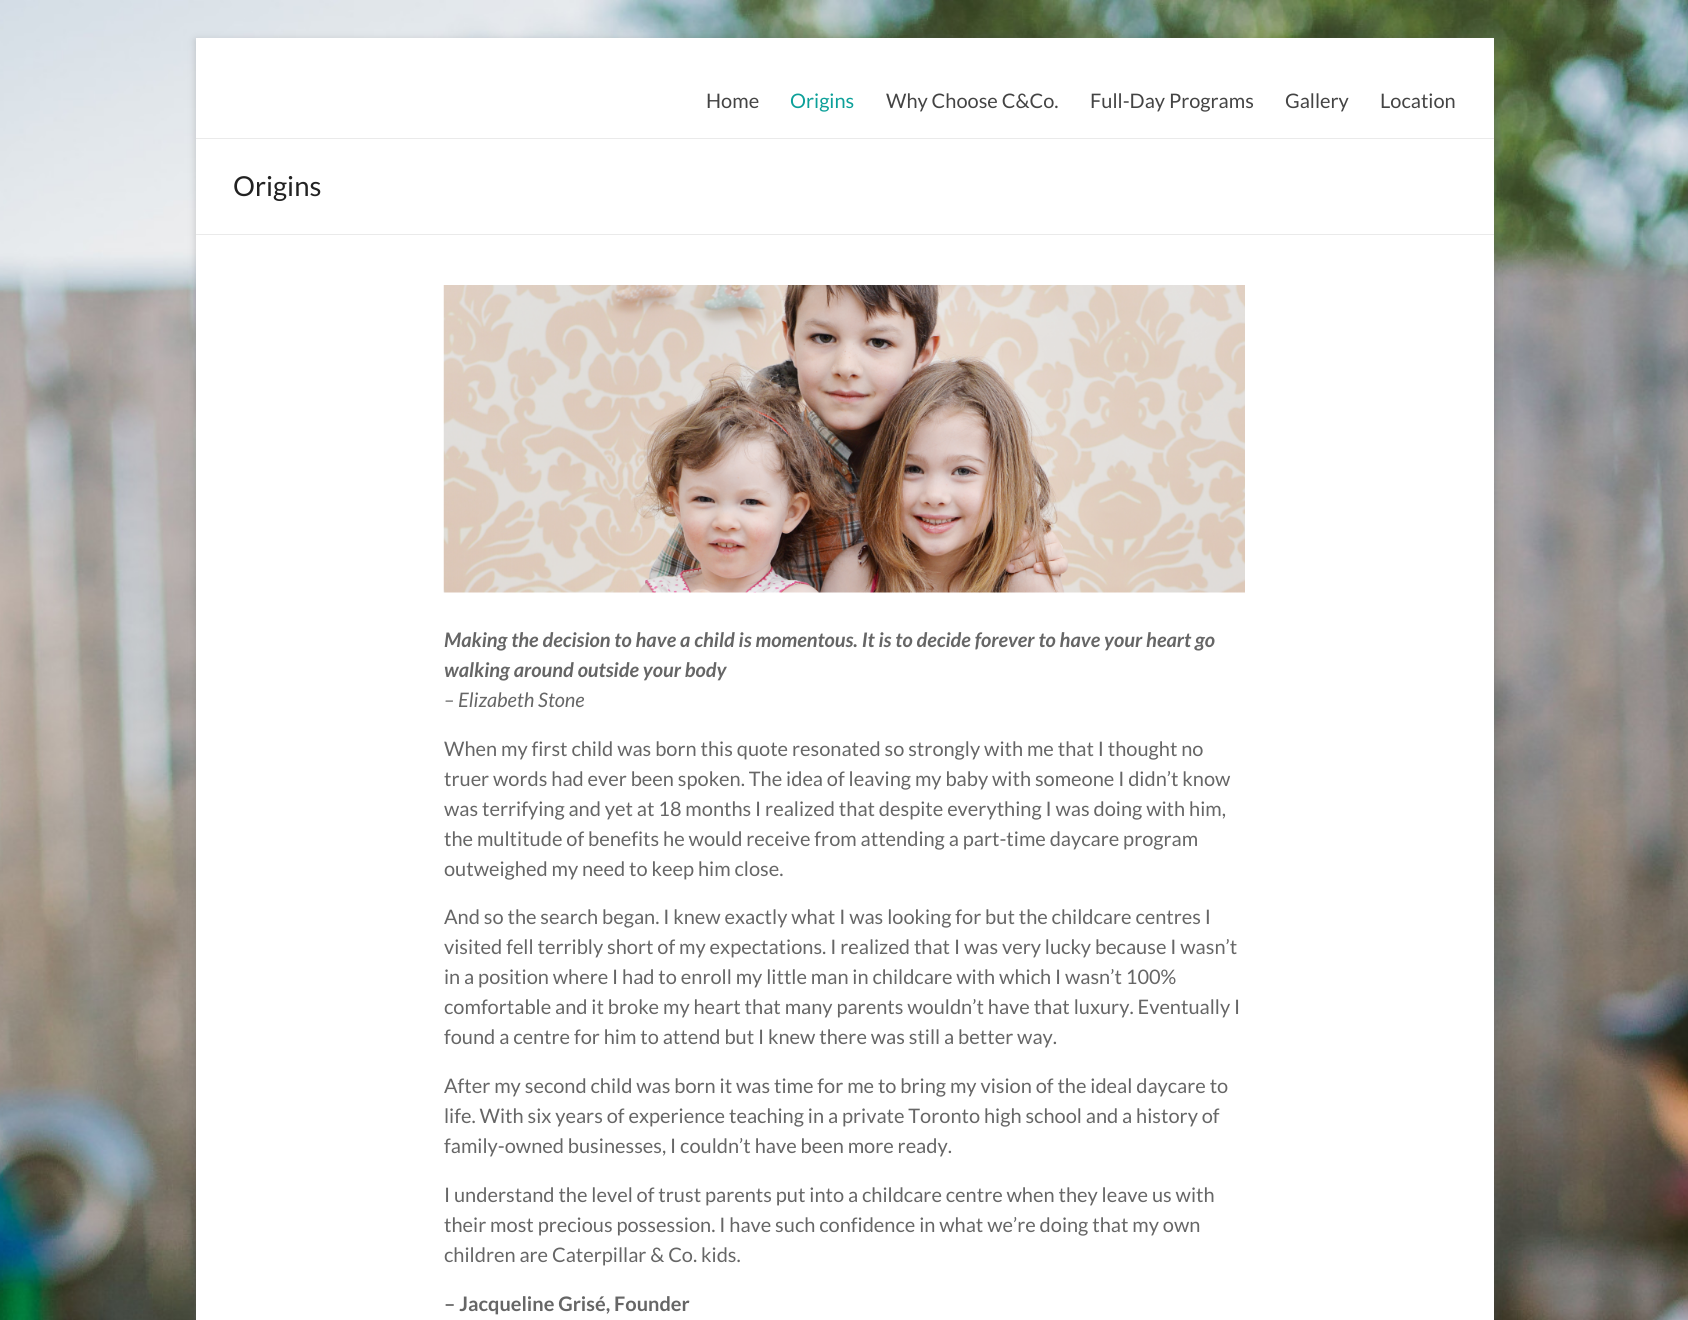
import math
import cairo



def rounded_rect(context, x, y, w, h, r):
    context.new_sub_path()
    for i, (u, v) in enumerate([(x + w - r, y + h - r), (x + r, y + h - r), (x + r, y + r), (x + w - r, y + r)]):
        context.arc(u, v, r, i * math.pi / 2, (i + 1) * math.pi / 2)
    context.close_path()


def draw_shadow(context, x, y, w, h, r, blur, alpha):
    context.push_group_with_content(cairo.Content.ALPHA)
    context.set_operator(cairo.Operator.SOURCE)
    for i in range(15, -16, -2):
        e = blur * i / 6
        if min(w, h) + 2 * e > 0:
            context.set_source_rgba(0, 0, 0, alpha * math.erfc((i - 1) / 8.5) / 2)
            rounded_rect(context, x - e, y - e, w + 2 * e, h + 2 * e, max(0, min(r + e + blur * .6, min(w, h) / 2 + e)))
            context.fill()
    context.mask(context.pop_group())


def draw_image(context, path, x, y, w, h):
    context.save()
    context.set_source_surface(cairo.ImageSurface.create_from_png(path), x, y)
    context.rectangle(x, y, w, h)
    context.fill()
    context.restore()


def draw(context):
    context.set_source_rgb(1, 1, 1)
    context.paint()
    draw_image(context, "images/1.png", 0, 0, 1688, 1320)
    context.set_source_rgb(100 / 255, 100 / 255, 100 / 255)
    draw_shadow(context, 196, 40, 1298, 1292, 0, 4, 0.3)
    context.set_source_rgb(1, 1, 1)
    context.rectangle(196, 38, 1298, 1282)
    context.fill()
    context.set_source_rgb(234 / 255, 234 / 255, 234 / 255)
    context.rectangle(196, 138, 1298, 1)
    context.fill()
    context.rectangle(196, 234, 1298, 1)
    context.fill()
    draw_image(context, "images/2.png", 443, 285, 802, 308)
    context.select_font_face("Lato")
    context.set_font_size(20)
    context.set_source_rgb(68 / 255, 68 / 255, 68 / 255)
    context.move_to(706, 108)
    context.show_text("Home")
    context.set_source_rgb(12 / 255, 160 / 255, 153 / 255)
    context.move_to(790, 108)
    context.show_text("Origins")
    context.set_source_rgb(68 / 255, 68 / 255, 68 / 255)
    context.move_to(886, 108)
    context.show_text("Why Choose C&Co.")
    context.move_to(1090, 108)
    context.show_text("Full-Day Programs")
    context.move_to(1285, 108)
    context.show_text("Gallery")
    context.move_to(1380, 108)
    context.show_text("Location")
    context.set_font_size(27.5)
    context.set_source_rgb(34 / 255, 34 / 255, 34 / 255)
    context.move_to(233, 196)
    context.show_text("Origins")
    context.select_font_face("Lato", cairo.FontSlant.ITALIC, cairo.FontWeight.BOLD)
    context.set_font_size(20)
    context.set_source_rgb(102 / 255, 102 / 255, 102 / 255)
    context.move_to(444, 647)
    context.show_text("Making the decision to have a child is momentous. It is to decide forever to have your heart go")
    context.move_to(444, 677)
    context.show_text("walking around outside your body")
    context.select_font_face("Lato", cairo.FontSlant.ITALIC)
    context.move_to(444, 707)
    context.show_text("– Elizabeth Stone")
    context.select_font_face("Lato")
    context.move_to(444, 756)
    context.show_text("When my first child was born this quote resonated so strongly with me that I thought no")
    context.move_to(444, 786)
    context.show_text("truer words had ever been spoken. The idea of leaving my baby with someone I didn’t know")
    context.move_to(444, 816)
    context.show_text("was terrifying and yet at 18 months I realized that despite everything I was doing with him,")
    context.move_to(444, 846)
    context.show_text("the multitude of benefits he would receive from attending a part-time daycare program")
    context.move_to(444, 876)
    context.show_text("outweighed my need to keep him close.")
    context.move_to(444, 924)
    context.show_text("And so the search began. I knew exactly what I was looking for but the childcare centres I")
    context.move_to(444, 954)
    context.show_text("visited fell terribly short of my expectations. I realized that I was very lucky because I wasn’t")
    context.move_to(444, 984)
    context.show_text("in a position where I had to enroll my little man in childcare with which I wasn’t 100%")
    context.move_to(444, 1014)
    context.show_text("comfortable and it broke my heart that many parents wouldn’t have that luxury. Eventually I")
    context.move_to(444, 1044)
    context.show_text("found a centre for him to attend but I knew there was still a better way.")
    context.move_to(444, 1093)
    context.show_text("After my second child was born it was time for me to bring my vision of the ideal daycare to")
    context.move_to(444, 1123)
    context.show_text("life. With six years of experience teaching in a private Toronto high school and a history of")
    context.move_to(444, 1153)
    context.show_text("family-owned businesses, I couldn’t have been more ready.")
    context.move_to(444, 1202)
    context.show_text("I understand the level of trust parents put into a childcare centre when they leave us with")
    context.move_to(444, 1232)
    context.show_text("their most precious possession. I have such confidence in what we’re doing that my own")
    context.move_to(444, 1262)
    context.show_text("children are Caterpillar & Co. kids.")
    context.select_font_face("Lato", cairo.FontSlant.NORMAL, cairo.FontWeight.BOLD)
    context.move_to(444, 1311)
    context.show_text("– Jacqueline Grisé, Founder")


surface = cairo.ImageSurface(cairo.Format.RGB24, 1688, 1320)
context = cairo.Context(surface)
options = cairo.FontOptions()
options.set_hint_metrics(cairo.HintMetrics.OFF)
options.set_hint_style(cairo.HintStyle.NONE)
context.set_font_options(options)
context.set_miter_limit(4)
draw(context)
surface.write_to_png("out.png")
